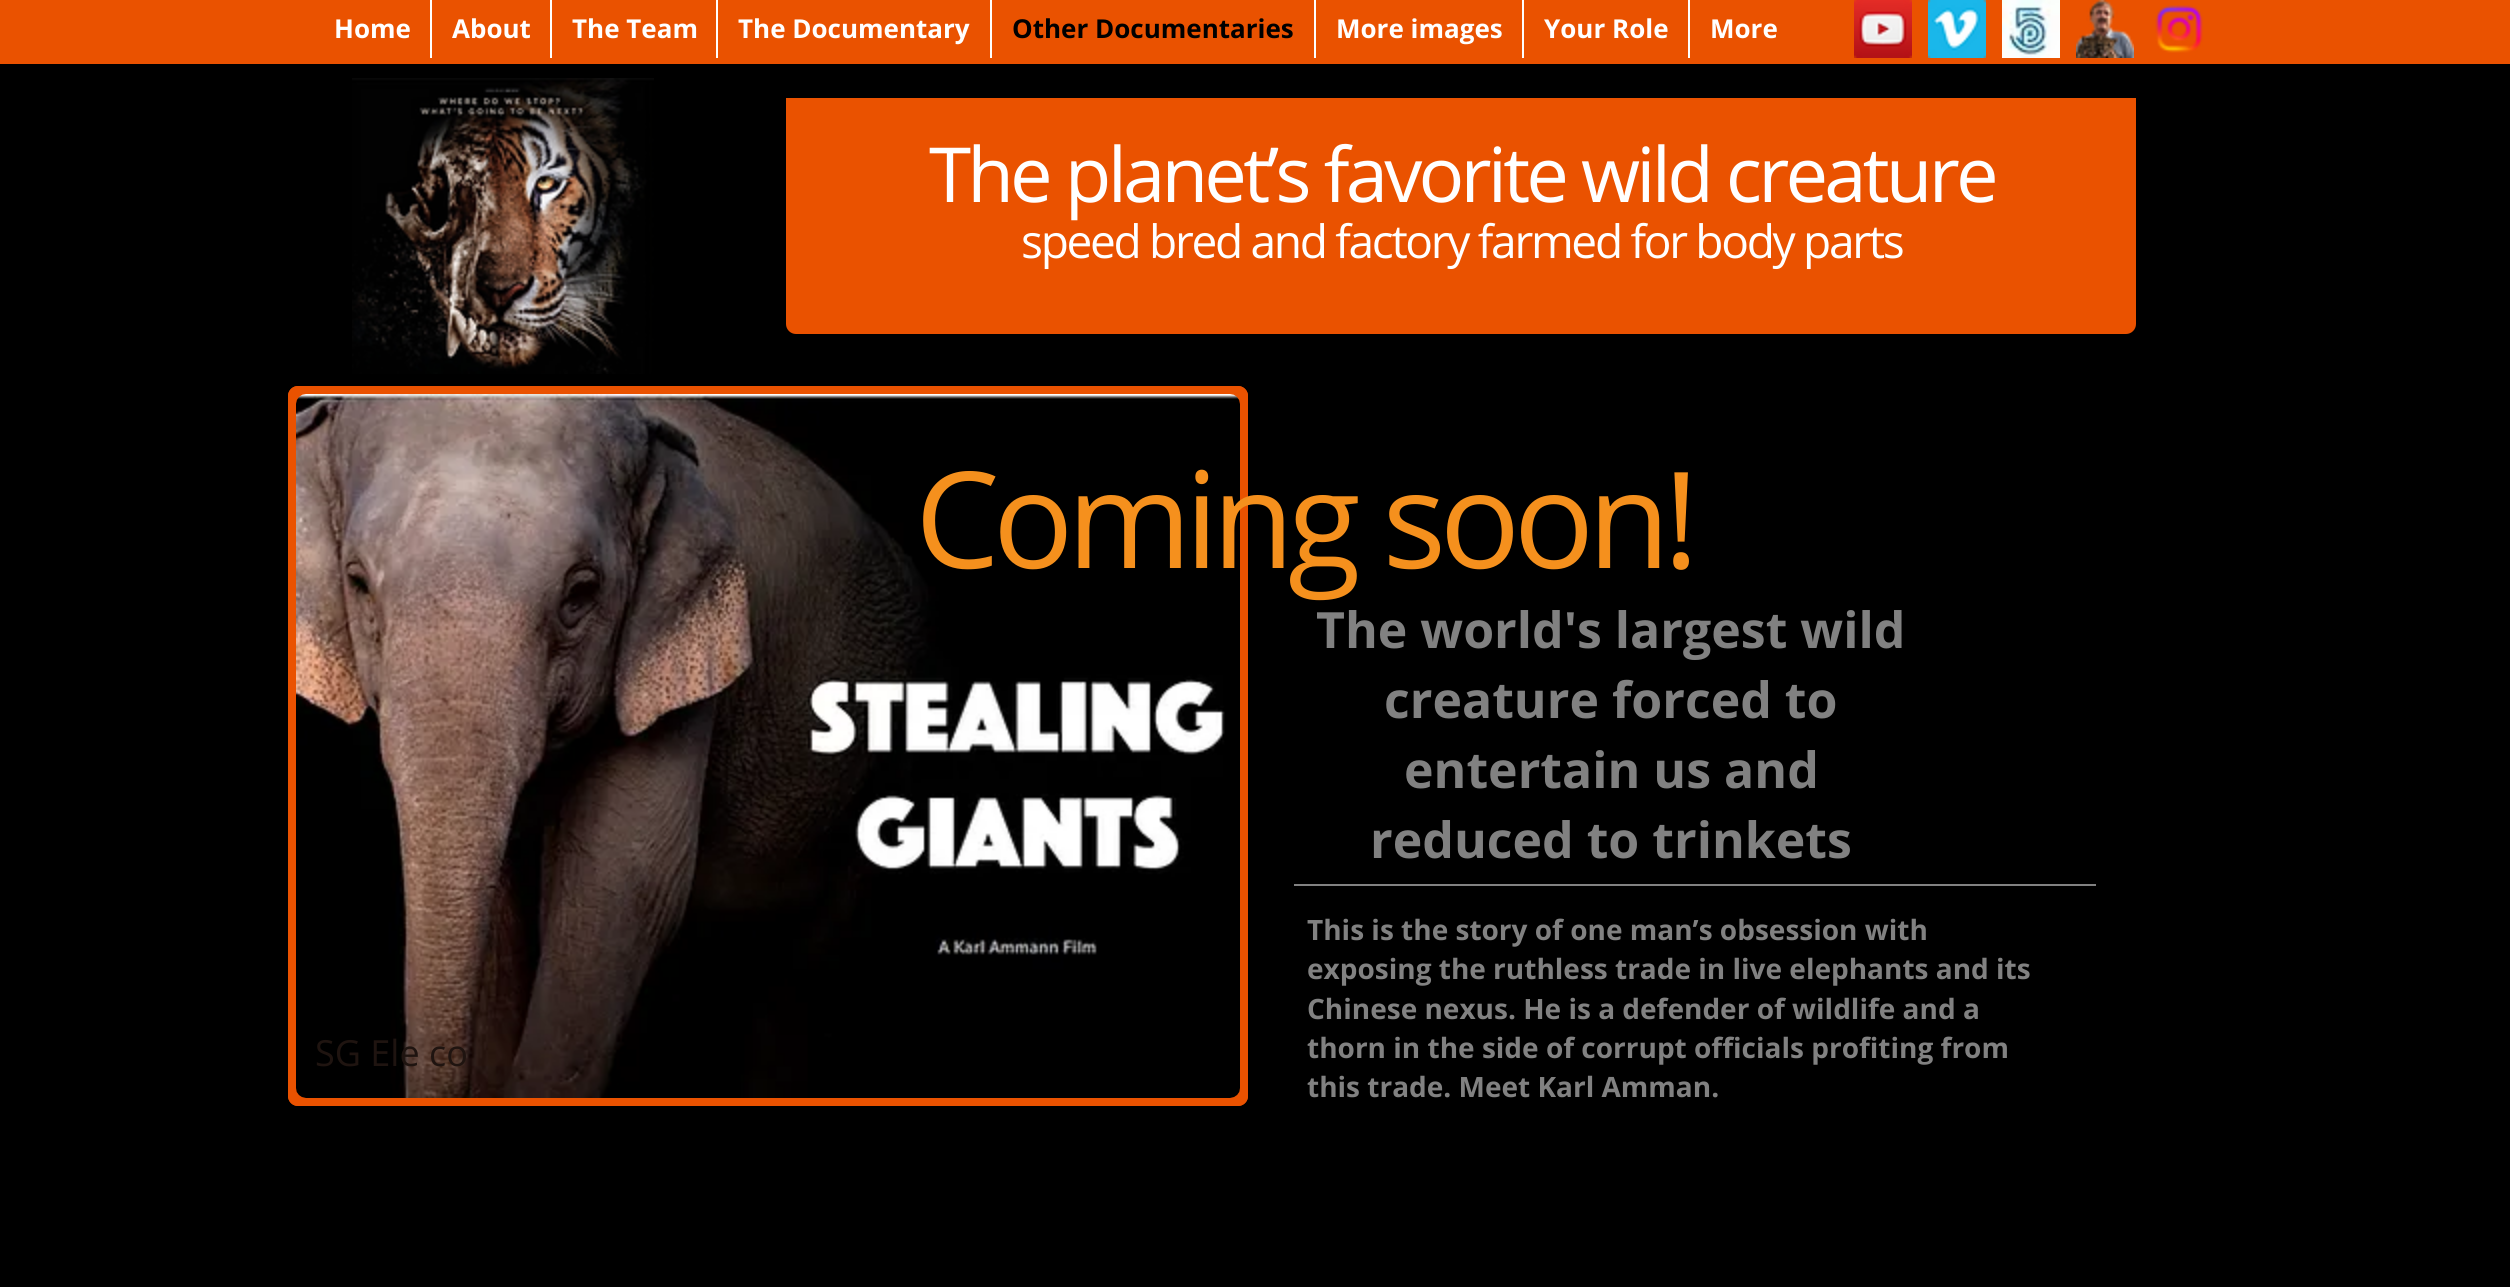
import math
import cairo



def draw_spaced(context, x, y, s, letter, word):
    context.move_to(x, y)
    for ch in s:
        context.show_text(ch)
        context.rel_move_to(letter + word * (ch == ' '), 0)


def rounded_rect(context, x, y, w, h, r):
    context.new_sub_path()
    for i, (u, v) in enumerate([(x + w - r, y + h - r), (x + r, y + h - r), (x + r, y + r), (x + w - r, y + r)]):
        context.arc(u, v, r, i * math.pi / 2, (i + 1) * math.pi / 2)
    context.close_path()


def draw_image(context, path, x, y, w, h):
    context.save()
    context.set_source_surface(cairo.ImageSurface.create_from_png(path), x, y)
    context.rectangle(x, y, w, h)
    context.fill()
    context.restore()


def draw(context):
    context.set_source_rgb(0, 0, 0)
    context.paint()
    context.set_source_rgb(234 / 255, 82 / 255, 0)
    context.rectangle(0, 0, 2510, 64)
    context.fill()
    context.set_source_rgb(1, 1, 1)
    context.rectangle(430, 0, 2, 58)
    context.fill()
    context.rectangle(550, 0, 2, 58)
    context.fill()
    context.rectangle(716, 0, 2, 58)
    context.fill()
    context.rectangle(990, 0, 2, 58)
    context.fill()
    context.rectangle(1314, 0, 2, 58)
    context.fill()
    context.rectangle(1522, 0, 2, 58)
    context.fill()
    context.rectangle(1688, 0, 2, 58)
    context.fill()
    draw_image(context, "images/1.png", 1854, 0, 58, 58)
    draw_image(context, "images/2.png", 1928, 0, 58, 58)
    draw_image(context, "images/3.png", 2002, 0, 58, 58)
    draw_image(context, "images/4.png", 2076, 0, 58, 58)
    draw_image(context, "images/5.png", 2155, 5, 48, 48)
    context.set_source_rgb(234 / 255, 82 / 255, 0)
    context.new_path()
    context.move_to(786, 98)
    context.line_to(2136, 98)
    context.line_to(2136, 324)
    context.curve_to(2136, 329.5, 2131.5, 334, 2126, 334)
    context.line_to(796, 334)
    context.curve_to(790.5, 334, 786, 329.5, 786, 324)
    context.close_path()
    context.fill()
    draw_image(context, "images/6.png", 352, 78, 302, 296)
    context.set_source_rgb(129 / 255, 129 / 255, 129 / 255)
    context.rectangle(1294, 884, 802, 2)
    context.fill()
    context.set_source_rgb(234 / 255, 82 / 255, 0)
    rounded_rect(context, 288, 386, 960, 720, 10)
    context.fill()
    draw_image(context, "images/7.png", 296, 394, 944, 704)
    rounded_rect(context, 292, 390, 952, 712, 6)
    context.set_line_width(8)
    context.stroke()
    context.select_font_face("Open Sans", cairo.FontSlant.NORMAL, cairo.FontWeight.BOLD)
    context.set_font_size(26)
    context.set_source_rgb(1, 1, 1)
    context.move_to(334, 38)
    context.show_text("Home")
    context.move_to(452, 38)
    context.show_text("About")
    context.move_to(572, 38)
    context.show_text("The Team")
    context.move_to(738, 38)
    context.show_text("The Documentary")
    context.set_source_rgb(0, 0, 0)
    context.move_to(1012, 38)
    context.show_text("Other Documentaries")
    context.set_source_rgb(1, 1, 1)
    context.move_to(1336, 38)
    context.show_text("More images")
    context.move_to(1544, 38)
    context.show_text("Your Role")
    context.move_to(1710, 38)
    context.show_text("More")
    context.select_font_face("Open Sans")
    context.set_font_size(76)
    draw_spaced(context, 929, 202, "The planet’s favorite wild creature", -3.8, 0)
    context.set_font_size(46)
    draw_spaced(context, 1021, 258, "speed bred and factory farmed for body parts", -2.3, 0)
    context.set_font_size(134)
    context.set_source_rgb(245 / 255, 144 / 255, 29 / 255)
    draw_spaced(context, 915, 568, "Coming soon!", -6.75, 0)
    context.select_font_face("Open Sans", cairo.FontSlant.NORMAL, cairo.FontWeight.BOLD)
    context.set_font_size(50)
    context.set_source_rgb(129 / 255, 129 / 255, 129 / 255)
    context.move_to(1316, 648)
    context.show_text("The world's largest wild")
    context.move_to(1384, 718)
    context.show_text("creature forced to")
    context.move_to(1404, 788)
    context.show_text("entertain us and")
    context.move_to(1370, 858)
    context.show_text("reduced to trinkets")
    context.select_font_face("Open Sans")
    context.set_font_size(36)
    context.set_source_rgb(31 / 255, 20 / 255, 16 / 255)
    context.move_to(315, 1066)
    context.show_text("SG Ele co")
    context.select_font_face("Open Sans", cairo.FontSlant.NORMAL, cairo.FontWeight.BOLD)
    context.set_font_size(28)
    context.set_source_rgb(129 / 255, 129 / 255, 129 / 255)
    context.move_to(1307, 940)
    context.show_text("This is the story of one man’s obsession with")
    context.move_to(1307, 979)
    context.show_text("exposing the ruthless trade in live elephants and its")
    context.move_to(1307, 1019)
    context.show_text("Chinese nexus. He is a defender of wildlife and a")
    context.move_to(1307, 1058)
    context.show_text("thorn in the side of corrupt officials profiting from")
    context.move_to(1307, 1097)
    context.show_text("this trade. Meet Karl Amman.")


surface = cairo.ImageSurface(cairo.Format.RGB24, 2510, 1287)
context = cairo.Context(surface)
options = cairo.FontOptions()
options.set_hint_metrics(cairo.HintMetrics.OFF)
options.set_hint_style(cairo.HintStyle.NONE)
context.set_font_options(options)
context.set_miter_limit(4)
draw(context)
surface.write_to_png("out.png")
